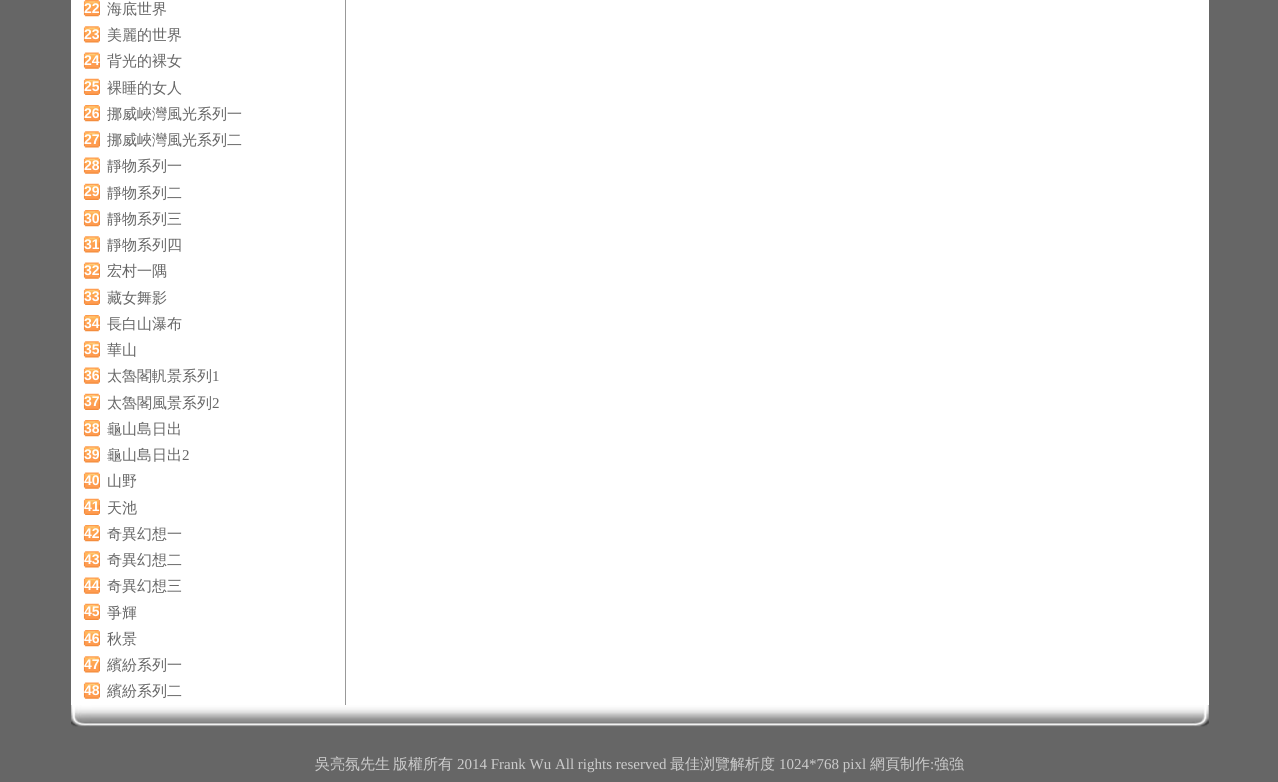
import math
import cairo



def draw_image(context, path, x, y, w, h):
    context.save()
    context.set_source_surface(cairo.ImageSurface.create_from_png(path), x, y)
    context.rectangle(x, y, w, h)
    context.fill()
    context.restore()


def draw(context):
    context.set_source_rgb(102 / 255, 102 / 255, 102 / 255)
    context.paint()
    context.set_source_rgb(1, 1, 1)
    context.rectangle(71, 0, 1138, 705)
    context.fill()
    context.set_source_rgb(153 / 255, 153 / 255, 153 / 255)
    context.rectangle(345, 0, 1, 705)
    context.fill()
    draw_image(context, "images/1.png", 83, 0, 17, 17)
    draw_image(context, "images/2.png", 83, 26, 17, 17)
    draw_image(context, "images/3.png", 83, 52, 17, 17)
    draw_image(context, "images/4.png", 83, 78, 17, 17)
    draw_image(context, "images/1.png", 83, 105, 17, 17)
    draw_image(context, "images/2.png", 83, 131, 17, 17)
    draw_image(context, "images/3.png", 83, 157, 17, 17)
    draw_image(context, "images/4.png", 83, 183, 17, 17)
    draw_image(context, "images/1.png", 83, 210, 17, 17)
    draw_image(context, "images/2.png", 83, 236, 17, 17)
    draw_image(context, "images/5.png", 83, 262, 17, 17)
    draw_image(context, "images/4.png", 83, 288, 17, 17)
    draw_image(context, "images/1.png", 83, 315, 17, 17)
    draw_image(context, "images/2.png", 83, 341, 17, 17)
    draw_image(context, "images/3.png", 83, 367, 17, 17)
    draw_image(context, "images/4.png", 83, 393, 17, 17)
    draw_image(context, "images/1.png", 83, 420, 17, 17)
    draw_image(context, "images/2.png", 83, 446, 17, 17)
    draw_image(context, "images/3.png", 83, 472, 17, 17)
    draw_image(context, "images/4.png", 83, 498, 17, 17)
    draw_image(context, "images/1.png", 83, 525, 17, 17)
    draw_image(context, "images/2.png", 83, 551, 17, 17)
    draw_image(context, "images/3.png", 83, 577, 17, 17)
    draw_image(context, "images/4.png", 83, 603, 17, 17)
    draw_image(context, "images/1.png", 83, 630, 17, 17)
    draw_image(context, "images/6.png", 83, 656, 17, 17)
    draw_image(context, "images/3.png", 83, 682, 17, 17)
    draw_image(context, "images/7.png", 71, 705, 1138, 22)
    context.select_font_face("Liberation Sans", cairo.FontSlant.NORMAL, cairo.FontWeight.BOLD)
    context.set_font_size(14)
    context.set_source_rgb(1, 1, 1)
    context.move_to(84, 13)
    context.show_text("22")
    context.select_font_face("WenQuanYi Zen Hei Medium")
    context.set_font_size(15)
    context.set_source_rgb(102 / 255, 102 / 255, 102 / 255)
    context.move_to(107, 14)
    context.show_text("海底世界")
    context.select_font_face("Liberation Sans", cairo.FontSlant.NORMAL, cairo.FontWeight.BOLD)
    context.set_font_size(14)
    context.set_source_rgb(1, 1, 1)
    context.move_to(84, 39)
    context.show_text("23")
    context.select_font_face("WenQuanYi Zen Hei Medium")
    context.set_font_size(15)
    context.set_source_rgb(102 / 255, 102 / 255, 102 / 255)
    context.move_to(107, 40)
    context.show_text("美麗的世界")
    context.select_font_face("Liberation Sans", cairo.FontSlant.NORMAL, cairo.FontWeight.BOLD)
    context.set_font_size(14)
    context.set_source_rgb(1, 1, 1)
    context.move_to(84, 65)
    context.show_text("24")
    context.select_font_face("WenQuanYi Zen Hei Medium")
    context.set_font_size(15)
    context.set_source_rgb(102 / 255, 102 / 255, 102 / 255)
    context.move_to(107, 66)
    context.show_text("背光的裸女")
    context.select_font_face("Liberation Sans", cairo.FontSlant.NORMAL, cairo.FontWeight.BOLD)
    context.set_font_size(14)
    context.set_source_rgb(1, 1, 1)
    context.move_to(84, 91)
    context.show_text("25")
    context.select_font_face("WenQuanYi Zen Hei Medium")
    context.set_font_size(15)
    context.set_source_rgb(102 / 255, 102 / 255, 102 / 255)
    context.move_to(107, 93)
    context.show_text("裸睡的女人")
    context.select_font_face("Liberation Sans", cairo.FontSlant.NORMAL, cairo.FontWeight.BOLD)
    context.set_font_size(14)
    context.set_source_rgb(1, 1, 1)
    context.move_to(84, 118)
    context.show_text("26")
    context.select_font_face("WenQuanYi Zen Hei Medium")
    context.set_font_size(15)
    context.set_source_rgb(102 / 255, 102 / 255, 102 / 255)
    context.move_to(107, 119)
    context.show_text("挪威峽灣風光系列一")
    context.select_font_face("Liberation Sans", cairo.FontSlant.NORMAL, cairo.FontWeight.BOLD)
    context.set_font_size(14)
    context.set_source_rgb(1, 1, 1)
    context.move_to(84, 144)
    context.show_text("27")
    context.select_font_face("WenQuanYi Zen Hei Medium")
    context.set_font_size(15)
    context.set_source_rgb(102 / 255, 102 / 255, 102 / 255)
    context.move_to(107, 145)
    context.show_text("挪威峽灣風光系列二")
    context.select_font_face("Liberation Sans", cairo.FontSlant.NORMAL, cairo.FontWeight.BOLD)
    context.set_font_size(14)
    context.set_source_rgb(1, 1, 1)
    context.move_to(84, 170)
    context.show_text("28")
    context.select_font_face("WenQuanYi Zen Hei Medium")
    context.set_font_size(15)
    context.set_source_rgb(102 / 255, 102 / 255, 102 / 255)
    context.move_to(107, 171)
    context.show_text("靜物系列一")
    context.select_font_face("Liberation Sans", cairo.FontSlant.NORMAL, cairo.FontWeight.BOLD)
    context.set_font_size(14)
    context.set_source_rgb(1, 1, 1)
    context.move_to(84, 196)
    context.show_text("29")
    context.select_font_face("WenQuanYi Zen Hei Medium")
    context.set_font_size(15)
    context.set_source_rgb(102 / 255, 102 / 255, 102 / 255)
    context.move_to(107, 198)
    context.show_text("靜物系列二")
    context.select_font_face("Liberation Sans", cairo.FontSlant.NORMAL, cairo.FontWeight.BOLD)
    context.set_font_size(14)
    context.set_source_rgb(1, 1, 1)
    context.move_to(84, 223)
    context.show_text("30")
    context.select_font_face("WenQuanYi Zen Hei Medium")
    context.set_font_size(15)
    context.set_source_rgb(102 / 255, 102 / 255, 102 / 255)
    context.move_to(107, 224)
    context.show_text("靜物系列三")
    context.select_font_face("Liberation Sans", cairo.FontSlant.NORMAL, cairo.FontWeight.BOLD)
    context.set_font_size(14)
    context.set_source_rgb(1, 1, 1)
    context.move_to(84, 249)
    context.show_text("31")
    context.select_font_face("WenQuanYi Zen Hei Medium")
    context.set_font_size(15)
    context.set_source_rgb(102 / 255, 102 / 255, 102 / 255)
    context.move_to(107, 250)
    context.show_text("靜物系列四")
    context.select_font_face("Liberation Sans", cairo.FontSlant.NORMAL, cairo.FontWeight.BOLD)
    context.set_font_size(14)
    context.set_source_rgb(1, 1, 1)
    context.move_to(84, 275)
    context.show_text("32")
    context.select_font_face("WenQuanYi Zen Hei Medium")
    context.set_font_size(15)
    context.set_source_rgb(102 / 255, 102 / 255, 102 / 255)
    context.move_to(107, 276)
    context.show_text("宏村一隅")
    context.select_font_face("Liberation Sans", cairo.FontSlant.NORMAL, cairo.FontWeight.BOLD)
    context.set_font_size(14)
    context.set_source_rgb(1, 1, 1)
    context.move_to(84, 301)
    context.show_text("33")
    context.select_font_face("WenQuanYi Zen Hei Medium")
    context.set_font_size(15)
    context.set_source_rgb(102 / 255, 102 / 255, 102 / 255)
    context.move_to(107, 303)
    context.show_text("藏女舞影")
    context.select_font_face("Liberation Sans", cairo.FontSlant.NORMAL, cairo.FontWeight.BOLD)
    context.set_font_size(14)
    context.set_source_rgb(1, 1, 1)
    context.move_to(84, 328)
    context.show_text("34")
    context.select_font_face("WenQuanYi Zen Hei Medium")
    context.set_font_size(15)
    context.set_source_rgb(102 / 255, 102 / 255, 102 / 255)
    context.move_to(107, 329)
    context.show_text("長白山瀑布")
    context.select_font_face("Liberation Sans", cairo.FontSlant.NORMAL, cairo.FontWeight.BOLD)
    context.set_font_size(14)
    context.set_source_rgb(1, 1, 1)
    context.move_to(84, 354)
    context.show_text("35")
    context.select_font_face("WenQuanYi Zen Hei Medium")
    context.set_font_size(15)
    context.set_source_rgb(102 / 255, 102 / 255, 102 / 255)
    context.move_to(107, 355)
    context.show_text("華山")
    context.select_font_face("Liberation Sans", cairo.FontSlant.NORMAL, cairo.FontWeight.BOLD)
    context.set_font_size(14)
    context.set_source_rgb(1, 1, 1)
    context.move_to(84, 380)
    context.show_text("36")
    context.select_font_face("WenQuanYi Zen Hei Medium")
    context.set_font_size(15)
    context.set_source_rgb(102 / 255, 102 / 255, 102 / 255)
    context.move_to(107, 381)
    context.show_text("太魯閣軓景系列")
    context.select_font_face("Liberation Serif")
    context.move_to(212, 381)
    context.show_text("1")
    context.select_font_face("Liberation Sans", cairo.FontSlant.NORMAL, cairo.FontWeight.BOLD)
    context.set_font_size(14)
    context.set_source_rgb(1, 1, 1)
    context.move_to(84, 406)
    context.show_text("37")
    context.select_font_face("WenQuanYi Zen Hei Medium")
    context.set_font_size(15)
    context.set_source_rgb(102 / 255, 102 / 255, 102 / 255)
    context.move_to(107, 408)
    context.show_text("太魯閣風景系列")
    context.select_font_face("Liberation Serif")
    context.move_to(212, 408)
    context.show_text("2")
    context.select_font_face("Liberation Sans", cairo.FontSlant.NORMAL, cairo.FontWeight.BOLD)
    context.set_font_size(14)
    context.set_source_rgb(1, 1, 1)
    context.move_to(84, 433)
    context.show_text("38")
    context.select_font_face("WenQuanYi Zen Hei Medium")
    context.set_font_size(15)
    context.set_source_rgb(102 / 255, 102 / 255, 102 / 255)
    context.move_to(107, 434)
    context.show_text("龜山島日出")
    context.select_font_face("Liberation Sans", cairo.FontSlant.NORMAL, cairo.FontWeight.BOLD)
    context.set_font_size(14)
    context.set_source_rgb(1, 1, 1)
    context.move_to(84, 459)
    context.show_text("39")
    context.select_font_face("WenQuanYi Zen Hei Medium")
    context.set_font_size(15)
    context.set_source_rgb(102 / 255, 102 / 255, 102 / 255)
    context.move_to(107, 460)
    context.show_text("龜山島日出")
    context.select_font_face("Liberation Serif")
    context.move_to(182, 460)
    context.show_text("2")
    context.select_font_face("Liberation Sans", cairo.FontSlant.NORMAL, cairo.FontWeight.BOLD)
    context.set_font_size(14)
    context.set_source_rgb(1, 1, 1)
    context.move_to(84, 485)
    context.show_text("40")
    context.select_font_face("WenQuanYi Zen Hei Medium")
    context.set_font_size(15)
    context.set_source_rgb(102 / 255, 102 / 255, 102 / 255)
    context.move_to(107, 486)
    context.show_text("山野")
    context.select_font_face("Liberation Sans", cairo.FontSlant.NORMAL, cairo.FontWeight.BOLD)
    context.set_font_size(14)
    context.set_source_rgb(1, 1, 1)
    context.move_to(84, 511)
    context.show_text("41")
    context.select_font_face("WenQuanYi Zen Hei Medium")
    context.set_font_size(15)
    context.set_source_rgb(102 / 255, 102 / 255, 102 / 255)
    context.move_to(107, 513)
    context.show_text("天池")
    context.select_font_face("Liberation Sans", cairo.FontSlant.NORMAL, cairo.FontWeight.BOLD)
    context.set_font_size(14)
    context.set_source_rgb(1, 1, 1)
    context.move_to(84, 538)
    context.show_text("42")
    context.select_font_face("WenQuanYi Zen Hei Medium")
    context.set_font_size(15)
    context.set_source_rgb(102 / 255, 102 / 255, 102 / 255)
    context.move_to(107, 539)
    context.show_text("奇異幻想一")
    context.select_font_face("Liberation Sans", cairo.FontSlant.NORMAL, cairo.FontWeight.BOLD)
    context.set_font_size(14)
    context.set_source_rgb(1, 1, 1)
    context.move_to(84, 564)
    context.show_text("43")
    context.select_font_face("WenQuanYi Zen Hei Medium")
    context.set_font_size(15)
    context.set_source_rgb(102 / 255, 102 / 255, 102 / 255)
    context.move_to(107, 565)
    context.show_text("奇異幻想二")
    context.select_font_face("Liberation Sans", cairo.FontSlant.NORMAL, cairo.FontWeight.BOLD)
    context.set_font_size(14)
    context.set_source_rgb(1, 1, 1)
    context.move_to(84, 590)
    context.show_text("44")
    context.select_font_face("WenQuanYi Zen Hei Medium")
    context.set_font_size(15)
    context.set_source_rgb(102 / 255, 102 / 255, 102 / 255)
    context.move_to(107, 591)
    context.show_text("奇異幻想三")
    context.select_font_face("Liberation Sans", cairo.FontSlant.NORMAL, cairo.FontWeight.BOLD)
    context.set_font_size(14)
    context.set_source_rgb(1, 1, 1)
    context.move_to(84, 616)
    context.show_text("45")
    context.select_font_face("WenQuanYi Zen Hei Medium")
    context.set_font_size(15)
    context.set_source_rgb(102 / 255, 102 / 255, 102 / 255)
    context.move_to(107, 618)
    context.show_text("爭輝")
    context.select_font_face("Liberation Sans", cairo.FontSlant.NORMAL, cairo.FontWeight.BOLD)
    context.set_font_size(14)
    context.set_source_rgb(1, 1, 1)
    context.move_to(84, 643)
    context.show_text("46")
    context.select_font_face("WenQuanYi Zen Hei Medium")
    context.set_font_size(15)
    context.set_source_rgb(102 / 255, 102 / 255, 102 / 255)
    context.move_to(107, 644)
    context.show_text("秋景")
    context.select_font_face("Liberation Sans", cairo.FontSlant.NORMAL, cairo.FontWeight.BOLD)
    context.set_font_size(14)
    context.set_source_rgb(1, 1, 1)
    context.move_to(84, 669)
    context.show_text("47")
    context.select_font_face("WenQuanYi Zen Hei Medium")
    context.set_font_size(15)
    context.set_source_rgb(102 / 255, 102 / 255, 102 / 255)
    context.move_to(107, 670)
    context.show_text("繽紛系列一")
    context.select_font_face("Liberation Sans", cairo.FontSlant.NORMAL, cairo.FontWeight.BOLD)
    context.set_font_size(14)
    context.set_source_rgb(1, 1, 1)
    context.move_to(84, 695)
    context.show_text("48")
    context.select_font_face("WenQuanYi Zen Hei Medium")
    context.set_font_size(15)
    context.set_source_rgb(102 / 255, 102 / 255, 102 / 255)
    context.move_to(107, 696)
    context.show_text("繽紛系列二")
    context.set_source_rgb(204 / 255, 204 / 255, 204 / 255)
    context.move_to(315, 769)
    context.show_text("吳亮氛先生")
    context.move_to(393, 769)
    context.show_text("版權所有")
    context.select_font_face("Liberation Serif")
    context.move_to(457, 769)
    context.show_text("2014 Frank Wu All rights reserved")
    context.select_font_face("WenQuanYi Zen Hei Medium")
    context.move_to(670, 769)
    context.show_text("最佳浏覽解析度")
    context.select_font_face("Liberation Serif")
    context.move_to(779, 769)
    context.show_text("1024*768 pixl")
    context.select_font_face("WenQuanYi Zen Hei Medium")
    context.move_to(870, 769)
    context.show_text("網頁制作")
    context.select_font_face("Liberation Serif")
    context.move_to(930, 769)
    context.show_text(":")
    context.select_font_face("WenQuanYi Zen Hei Medium")
    context.move_to(934, 769)
    context.show_text("強強")


surface = cairo.ImageSurface(cairo.Format.RGB24, 1278, 782)
context = cairo.Context(surface)
options = cairo.FontOptions()
options.set_hint_metrics(cairo.HintMetrics.OFF)
options.set_hint_style(cairo.HintStyle.NONE)
context.set_font_options(options)
context.set_miter_limit(4)
draw(context)
surface.write_to_png("out.png")
